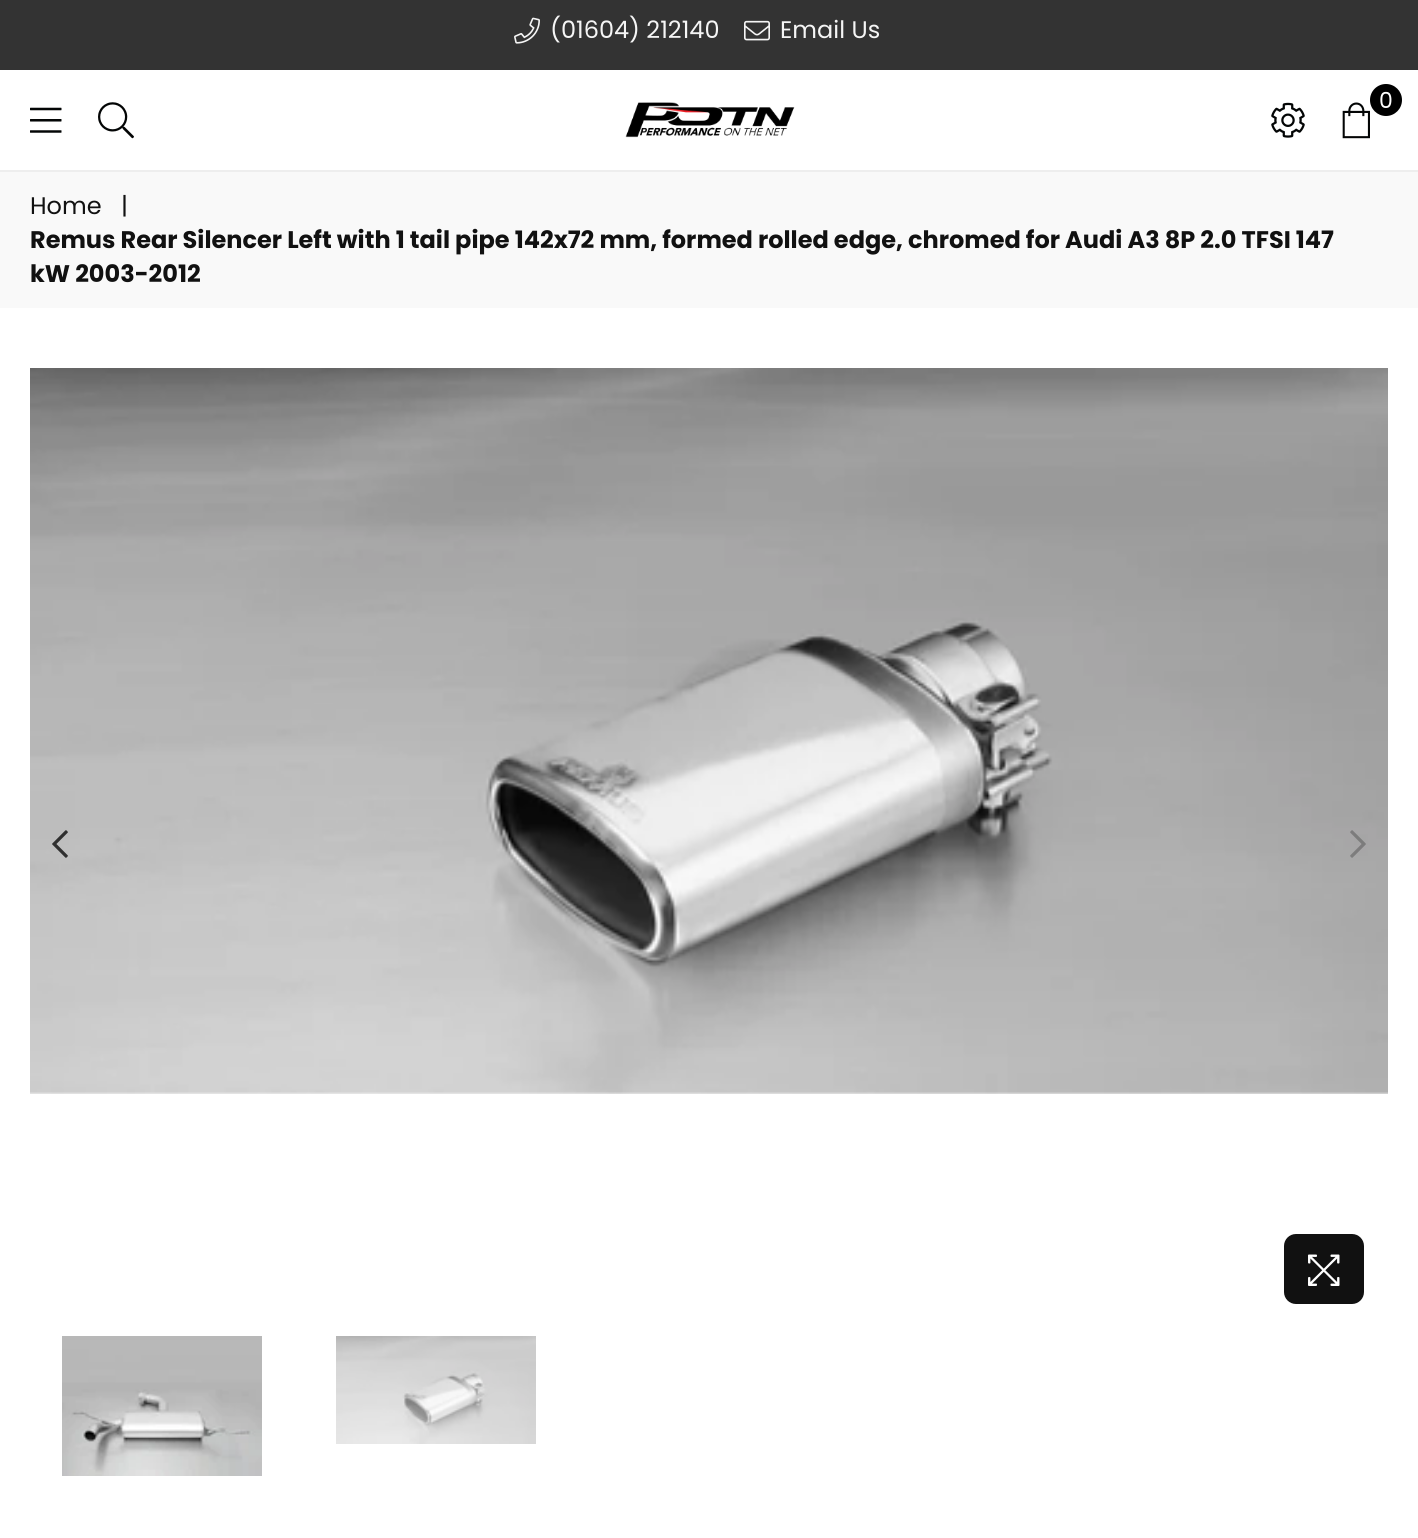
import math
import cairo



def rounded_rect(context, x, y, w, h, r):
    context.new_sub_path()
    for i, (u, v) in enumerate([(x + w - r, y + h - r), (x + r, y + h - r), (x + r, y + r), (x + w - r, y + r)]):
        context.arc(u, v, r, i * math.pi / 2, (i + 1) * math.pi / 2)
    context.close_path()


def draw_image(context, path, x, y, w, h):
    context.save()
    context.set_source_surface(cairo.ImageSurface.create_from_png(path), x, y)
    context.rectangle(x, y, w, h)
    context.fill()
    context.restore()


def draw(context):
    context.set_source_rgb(1, 1, 1)
    context.paint()
    context.set_source_rgb(51 / 255, 51 / 255, 51 / 255)
    context.rectangle(0, 0, 1418, 70)
    context.fill()
    draw_image(context, "images/1.png", 514, 17, 26, 27)
    draw_image(context, "images/2.png", 744, 20, 26, 21)
    context.set_source_rgb(238 / 255, 238 / 255, 238 / 255)
    context.rectangle(0, 170, 1418, 2)
    context.fill()
    context.set_source_rgb(0, 0, 0)
    context.arc(1386, 100, 16, 0, 2 * math.pi)
    context.fill()
    draw_image(context, "images/3.png", 1342, 102, 28, 37)
    draw_image(context, "images/4.png", 1271, 102, 34, 36)
    draw_image(context, "images/5.png", 30, 107, 32, 26)
    draw_image(context, "images/6.png", 98, 102, 36, 37)
    draw_image(context, "images/7.png", 625, 102, 170, 36)
    context.set_source_rgb(249 / 255, 249 / 255, 249 / 255)
    context.rectangle(0, 172, 1418, 136)
    context.fill()
    draw_image(context, "images/8.png", 30, 368, 1358, 726)
    draw_image(context, "images/9.png", 52, 830, 16, 28)
    draw_image(context, "images/10.png", 1350, 830, 16, 28)
    context.set_source_rgb(17 / 255, 17 / 255, 17 / 255)
    rounded_rect(context, 1284, 1234, 80, 70, 12)
    context.fill()
    draw_image(context, "images/11.png", 1308, 1254, 32, 32)
    draw_image(context, "images/12.png", 62, 1336, 200, 140)
    draw_image(context, "images/13.png", 336, 1336, 200, 108)
    context.select_font_face("Poppins")
    context.set_font_size(24)
    context.set_source_rgb(245 / 255, 245 / 255, 245 / 255)
    context.move_to(550, 38)
    context.show_text("(01604) 212140")
    context.move_to(780, 38)
    context.show_text("Email Us")
    context.set_font_size(22)
    context.set_source_rgb(1, 1, 1)
    context.move_to(1379, 108)
    context.show_text("0")
    context.set_font_size(24)
    context.set_source_rgb(17 / 255, 17 / 255, 17 / 255)
    context.move_to(30, 214)
    context.show_text("Home")
    context.move_to(121, 214)
    context.show_text("|")
    context.select_font_face("Poppins", cairo.FontSlant.NORMAL, cairo.FontWeight.BOLD)
    context.move_to(30, 248)
    context.show_text("Remus Rear Silencer Left with 1 tail pipe 142x72 mm, formed rolled edge, chromed for Audi A3 8P 2.0 TFSI 147")
    context.move_to(30, 282)
    context.show_text("kW 2003-2012")


surface = cairo.ImageSurface(cairo.Format.RGB24, 1418, 1538)
context = cairo.Context(surface)
options = cairo.FontOptions()
options.set_hint_metrics(cairo.HintMetrics.OFF)
options.set_hint_style(cairo.HintStyle.NONE)
context.set_font_options(options)
context.set_miter_limit(4)
draw(context)
surface.write_to_png("out.png")
